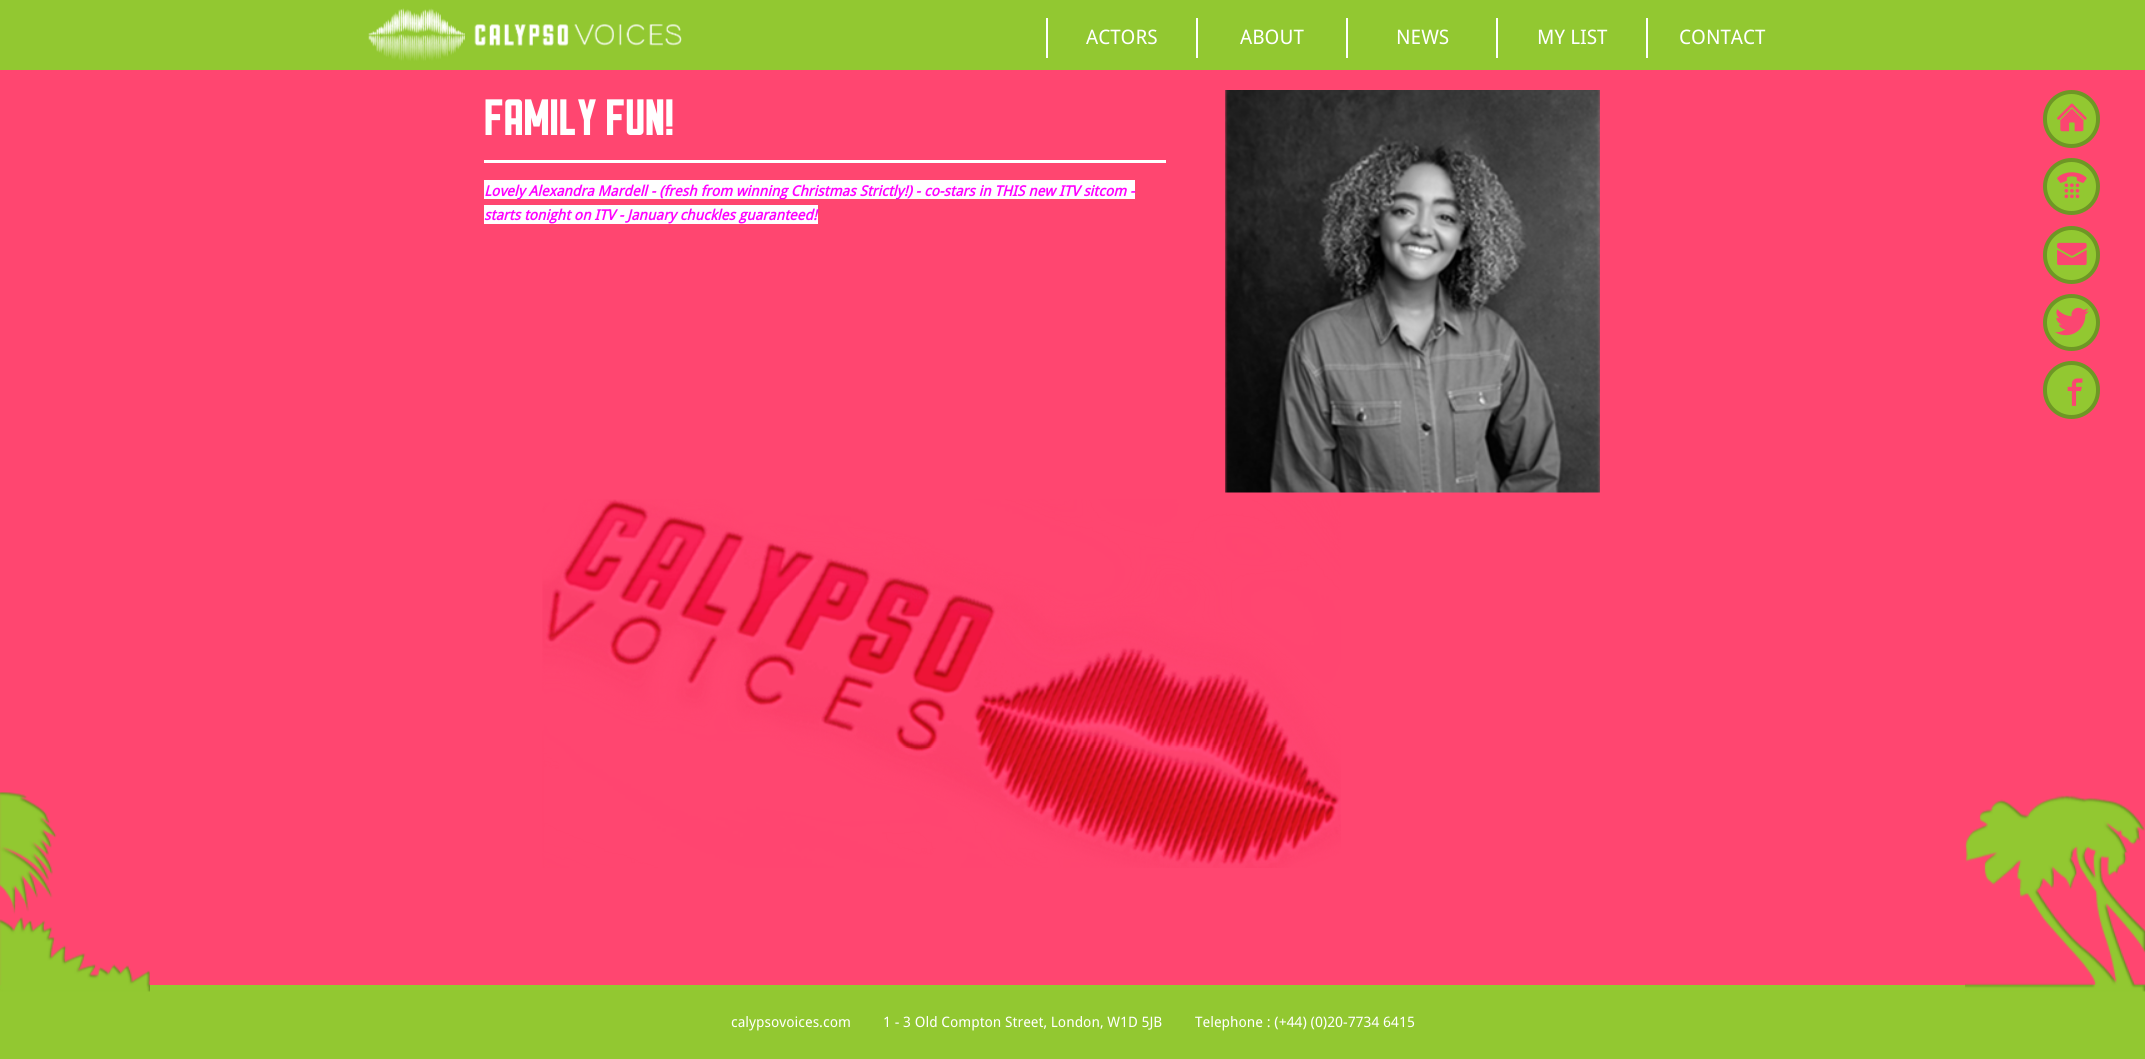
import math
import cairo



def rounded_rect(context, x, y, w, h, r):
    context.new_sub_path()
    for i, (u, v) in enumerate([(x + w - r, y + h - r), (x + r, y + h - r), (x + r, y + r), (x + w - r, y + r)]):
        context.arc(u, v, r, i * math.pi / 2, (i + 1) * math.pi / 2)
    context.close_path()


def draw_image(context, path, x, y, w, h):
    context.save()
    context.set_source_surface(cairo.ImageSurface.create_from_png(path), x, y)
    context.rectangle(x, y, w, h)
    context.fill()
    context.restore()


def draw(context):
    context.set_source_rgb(1, 70 / 255, 112 / 255)
    context.paint()
    context.set_source_rgb(146 / 255, 200 / 255, 49 / 255)
    context.rectangle(0, 0, 2145, 70)
    context.fill()
    draw_image(context, "images/1.png", 368, 8, 314, 53)
    context.set_source_rgb(1, 1, 1)
    context.new_path()
    context.move_to(1046, 18)
    context.line_to(1046, 58)
    context.line_to(1196, 58)
    context.line_to(1048, 58)
    context.line_to(1048, 18)
    context.close_path()
    context.fill()
    context.new_path()
    context.move_to(1196, 18)
    context.line_to(1196, 58)
    context.line_to(1346, 58)
    context.line_to(1198, 58)
    context.line_to(1198, 18)
    context.close_path()
    context.fill()
    context.new_path()
    context.move_to(1346, 18)
    context.line_to(1346, 58)
    context.line_to(1496, 58)
    context.line_to(1348, 58)
    context.line_to(1348, 18)
    context.close_path()
    context.fill()
    context.new_path()
    context.move_to(1496, 18)
    context.line_to(1496, 58)
    context.line_to(1646, 58)
    context.line_to(1498, 58)
    context.line_to(1498, 18)
    context.close_path()
    context.fill()
    context.new_path()
    context.move_to(1646, 18)
    context.line_to(1646, 58)
    context.line_to(1796, 58)
    context.line_to(1648, 58)
    context.line_to(1648, 18)
    context.close_path()
    context.fill()
    context.rectangle(484, 160, 682, 3)
    context.fill()
    context.rectangle(484, 180, 651, 19)
    context.fill()
    context.rectangle(484, 205, 334, 19)
    context.fill()
    draw_image(context, "images/2.png", 1225, 90, 375, 403)
    context.set_source_rgb(146 / 255, 200 / 255, 49 / 255)
    rounded_rect(context, 2045, 92, 53, 54, 26.5)
    context.fill_preserve()
    context.set_source_rgb(110 / 255, 151 / 255, 37 / 255)
    context.set_line_width(4)
    context.stroke()
    draw_image(context, "images/3.png", 2057, 103, 30, 29)
    context.set_source_rgb(146 / 255, 200 / 255, 49 / 255)
    context.arc(2071.5, 186.5, 26.5, 0, 2 * math.pi)
    context.fill_preserve()
    context.set_source_rgb(110 / 255, 151 / 255, 37 / 255)
    context.stroke()
    draw_image(context, "images/4.png", 2057, 172, 30, 27)
    context.set_source_rgb(146 / 255, 200 / 255, 49 / 255)
    rounded_rect(context, 2045, 228, 53, 54, 26.5)
    context.fill_preserve()
    context.set_source_rgb(110 / 255, 151 / 255, 37 / 255)
    context.stroke()
    draw_image(context, "images/5.png", 2057, 242, 30, 24)
    context.set_source_rgb(146 / 255, 200 / 255, 49 / 255)
    context.arc(2071.5, 322.5, 26.5, 0, 2 * math.pi)
    context.fill_preserve()
    context.set_source_rgb(110 / 255, 151 / 255, 37 / 255)
    context.stroke()
    draw_image(context, "images/6.png", 2055, 307, 34, 29)
    context.set_source_rgb(146 / 255, 200 / 255, 49 / 255)
    rounded_rect(context, 2045, 363, 53, 54, 26.5)
    context.fill_preserve()
    context.set_source_rgb(110 / 255, 151 / 255, 37 / 255)
    context.stroke()
    draw_image(context, "images/7.png", 2067, 378, 16, 28)
    draw_image(context, "images/8.png", 542, 499, 799, 369)
    context.set_source_rgb(146 / 255, 200 / 255, 49 / 255)
    context.rectangle(0, 985, 2145, 74)
    context.fill()
    draw_image(context, "images/9.png", 0, 792, 150, 200)
    draw_image(context, "images/10.png", 1965, 795, 180, 197)
    context.select_font_face("Droid Sans")
    context.set_font_size(20)
    context.set_source_rgb(1, 1, 1)
    context.move_to(1086, 44)
    context.show_text("ACTORS")
    context.move_to(1240, 44)
    context.show_text("ABOUT")
    context.move_to(1396, 44)
    context.show_text("NEWS")
    context.move_to(1537, 44)
    context.show_text("MY LIST")
    context.move_to(1679, 44)
    context.show_text("CONTACT")
    context.select_font_face("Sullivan", cairo.FontSlant.NORMAL, cairo.FontWeight.BOLD)
    context.set_font_size(52)
    context.move_to(484, 135)
    context.show_text("FAMILY FUN!")
    context.select_font_face("Droid Sans", cairo.FontSlant.ITALIC, cairo.FontWeight.BOLD)
    context.set_font_size(14.4)
    context.set_source_rgb(1, 0, 1)
    context.move_to(484, 196)
    context.show_text("Lovely Alexandra Mardell - (fresh from winning Christmas Strictly!) - co-stars in THIS new ITV sitcom -")
    context.move_to(484, 220)
    context.show_text("starts tonight on ITV - January chuckles guaranteed!")
    context.select_font_face("Droid Sans")
    context.set_source_rgb(1, 1, 1)
    context.move_to(731, 1027)
    context.show_text("calypsovoices.com")
    context.move_to(883, 1027)
    context.show_text("1 - 3 Old Compton Street, London, W1D 5JB")
    context.move_to(1195, 1027)
    context.show_text("Telephone : (+44) (0)20-7734 6415")


surface = cairo.ImageSurface(cairo.Format.RGB24, 2145, 1059)
context = cairo.Context(surface)
options = cairo.FontOptions()
options.set_hint_metrics(cairo.HintMetrics.OFF)
options.set_hint_style(cairo.HintStyle.NONE)
context.set_font_options(options)
context.set_miter_limit(4)
draw(context)
surface.write_to_png("out.png")
